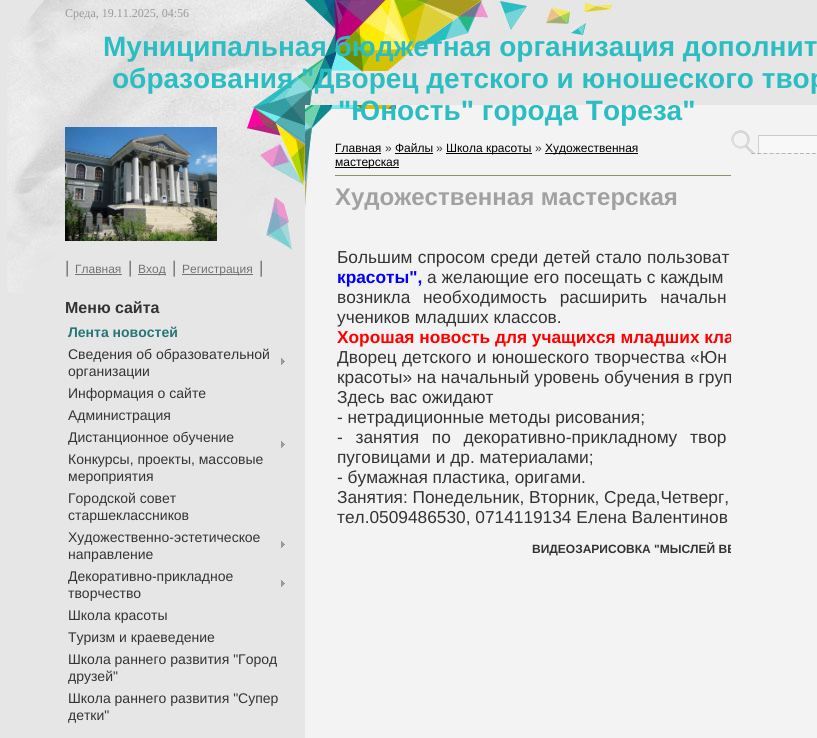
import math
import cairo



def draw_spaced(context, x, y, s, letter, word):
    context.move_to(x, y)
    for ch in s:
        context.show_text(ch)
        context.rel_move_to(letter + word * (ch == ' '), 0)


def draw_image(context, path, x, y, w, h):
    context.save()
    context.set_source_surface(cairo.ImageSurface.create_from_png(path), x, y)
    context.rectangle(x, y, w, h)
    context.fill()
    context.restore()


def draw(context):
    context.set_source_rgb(230 / 255, 230 / 255, 230 / 255)
    context.paint()
    draw_image(context, "images/1.png", 7, 0, 609, 293)
    draw_image(context, "images/2.png", 65, 127, 152, 114)
    context.set_source_rgb(114 / 255, 114 / 255, 114 / 255)
    context.rectangle(75, 274, 47, 1)
    context.fill()
    context.rectangle(138, 274, 28, 1)
    context.fill()
    context.rectangle(182, 274, 71, 1)
    context.fill()
    draw_image(context, "images/3.png", 281, 358, 4, 7)
    draw_image(context, "images/3.png", 281, 441, 4, 7)
    draw_image(context, "images/3.png", 281, 541, 4, 7)
    draw_image(context, "images/3.png", 281, 580, 4, 7)
    context.set_source_rgb(243 / 255, 243 / 255, 243 / 255)
    context.rectangle(305, 105, 512, 633)
    context.fill()
    draw_image(context, "images/4.png", 305, 105, 91, 102)
    context.set_source_rgb(0, 0, 0)
    context.rectangle(335, 153, 46, 1)
    context.fill()
    context.rectangle(395, 153, 38, 1)
    context.fill()
    context.rectangle(446, 153, 86, 1)
    context.fill()
    context.rectangle(545, 153, 93, 1)
    context.fill()
    context.rectangle(335, 167, 64, 1)
    context.fill()
    context.set_source_rgb(145 / 255, 143 / 255, 105 / 255)
    context.rectangle(335, 175, 396, 1)
    context.fill()
    draw_image(context, "images/5.png", 731, 130, 86, 24)
    context.select_font_face("Liberation Serif")
    context.set_font_size(12)
    context.set_source_rgb(153 / 255, 153 / 255, 153 / 255)
    context.move_to(65, 17)
    context.show_text("Среда, 19.11.2025, 04:56")
    context.select_font_face("Liberation Sans", cairo.FontSlant.NORMAL, cairo.FontWeight.BOLD)
    context.set_font_size(28)
    context.set_source_rgb(43 / 255, 189 / 255, 194 / 255)
    context.move_to(103, 56)
    context.show_text("Муниципальная бюджетная организация дополнит")
    context.move_to(112, 88)
    context.show_text("образования \"Дворец детского и юношеского твор")
    context.move_to(338, 120)
    context.show_text("\"Юность\" города Тореза\"")
    context.select_font_face("Liberation Sans")
    context.set_font_size(17)
    context.set_source_rgb(114 / 255, 114 / 255, 114 / 255)
    context.move_to(65, 273)
    context.show_text("|")
    context.set_font_size(12)
    context.move_to(75, 273)
    context.show_text("Главная")
    context.set_font_size(17)
    context.move_to(128, 273)
    context.show_text("|")
    context.set_font_size(12)
    context.move_to(138, 273)
    context.show_text("Вход")
    context.set_font_size(17)
    context.move_to(172, 273)
    context.show_text("|")
    context.set_font_size(12)
    context.move_to(182, 273)
    context.show_text("Регистрация")
    context.set_font_size(17)
    context.move_to(259, 273)
    context.show_text("|")
    context.select_font_face("Liberation Sans", cairo.FontSlant.NORMAL, cairo.FontWeight.BOLD)
    context.set_font_size(16)
    context.set_source_rgb(51 / 255, 51 / 255, 51 / 255)
    context.move_to(65, 313)
    context.show_text("Меню сайта")
    context.set_font_size(14)
    context.set_source_rgb(38 / 255, 117 / 255, 120 / 255)
    context.move_to(68, 337)
    context.show_text("Лента новостей")
    context.select_font_face("Liberation Sans")
    context.set_source_rgb(51 / 255, 51 / 255, 51 / 255)
    context.move_to(68, 359)
    context.show_text("Сведения об образовательной")
    context.move_to(68, 376)
    context.show_text("организации")
    context.move_to(68, 398)
    context.show_text("Информация о сайте")
    context.move_to(68, 420)
    context.show_text("Администрация")
    context.move_to(68, 442)
    context.show_text("Дистанционное обучение")
    context.move_to(68, 464)
    context.show_text("Конкурсы, проекты, массовые")
    context.move_to(68, 481)
    context.show_text("мероприятия")
    context.move_to(68, 503)
    context.show_text("Городской совет")
    context.move_to(68, 520)
    context.show_text("старшеклассников")
    context.move_to(68, 542)
    context.show_text("Художественно-эстетическое")
    context.move_to(68, 559)
    context.show_text("направление")
    context.move_to(68, 581)
    context.show_text("Декоративно-прикладное")
    context.move_to(68, 598)
    context.show_text("творчество")
    context.move_to(68, 620)
    context.show_text("Школа красоты")
    context.move_to(68, 642)
    context.show_text("Туризм и краеведение")
    context.move_to(68, 664)
    context.show_text("Школа раннего развития \"Город")
    context.move_to(68, 681)
    context.show_text("друзей\"")
    context.move_to(68, 703)
    context.show_text("Школа раннего развития \"Супер")
    context.move_to(68, 720)
    context.show_text("детки\"")
    context.set_font_size(12)
    context.set_source_rgb(0, 0, 0)
    context.move_to(335, 152)
    context.show_text("Главная")
    context.set_source_rgb(51 / 255, 51 / 255, 51 / 255)
    context.move_to(385, 152)
    context.show_text("»")
    context.set_source_rgb(0, 0, 0)
    context.move_to(395, 152)
    context.show_text("Файлы")
    context.set_source_rgb(51 / 255, 51 / 255, 51 / 255)
    context.move_to(436, 152)
    context.show_text("»")
    context.set_source_rgb(0, 0, 0)
    context.move_to(446, 152)
    context.show_text("Школа красоты")
    context.set_source_rgb(51 / 255, 51 / 255, 51 / 255)
    context.move_to(535, 152)
    context.show_text("»")
    context.set_source_rgb(0, 0, 0)
    context.move_to(545, 152)
    context.show_text("Художественная")
    context.move_to(335, 166)
    context.show_text("мастерская")
    context.select_font_face("Liberation Sans", cairo.FontSlant.NORMAL, cairo.FontWeight.BOLD)
    context.set_font_size(24)
    context.set_source_rgb(161 / 255, 161 / 255, 161 / 255)
    context.move_to(335, 205)
    context.show_text("Художественная мастерская")
    context.select_font_face("Liberation Sans")
    context.set_font_size(17.3)
    context.set_source_rgb(51 / 255, 51 / 255, 51 / 255)
    draw_spaced(context, 337, 263, "Большим спросом среди детей стало пользоват", 0, 0.5)
    context.select_font_face("Liberation Sans", cairo.FontSlant.NORMAL, cairo.FontWeight.BOLD)
    context.set_source_rgb(0, 0, 1)
    context.move_to(337, 283)
    context.show_text("красоты\",")
    context.select_font_face("Liberation Sans")
    context.set_source_rgb(51 / 255, 51 / 255, 51 / 255)
    context.move_to(427, 283)
    context.show_text("а желающие его посещать с каждым")
    draw_spaced(context, 337, 303, "возникла необходимость расширить начальн", 0, 8)
    context.move_to(337, 323)
    context.show_text("учеников младших классов.")
    context.save()
    context.rectangle(335, 141, 396, 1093)
    context.clip()
    context.select_font_face("Liberation Sans", cairo.FontSlant.NORMAL, cairo.FontWeight.BOLD)
    context.set_source_rgb(1, 0, 0)
    context.move_to(337, 343)
    context.show_text("Хорошая новость для учащихся младших кла")
    context.restore()
    draw_spaced(context, 337, 363, "Дворец детского и юношеского творчества «Юн", 0, 0.5)
    context.save()
    context.rectangle(335, 141, 396, 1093)
    context.clip()
    context.move_to(337, 383)
    context.show_text("красоты» на начальный уровень обучения в груп")
    context.restore()
    context.move_to(337, 403)
    context.show_text("Здесь вас ожидают")
    context.move_to(337, 423)
    context.show_text("- нетрадиционные методы рисования;")
    draw_spaced(context, 337, 443, "- занятия по декоративно-прикладному твор", 0, 8)
    context.move_to(337, 463)
    context.show_text("пуговицами и др. материалами;")
    context.move_to(337, 483)
    context.show_text("- бумажная пластика, оригами.")
    context.move_to(337, 503)
    context.show_text("Занятия: Понедельник, Вторник, Среда,Четверг,")
    context.move_to(337, 523)
    context.show_text("тел.0509486530, 0714119134 Елена Валентинов")
    context.save()
    context.rectangle(335, 141, 396, 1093)
    context.clip()
    context.select_font_face("Liberation Sans", cairo.FontSlant.NORMAL, cairo.FontWeight.BOLD)
    context.set_font_size(12)
    context.move_to(532, 553)
    context.show_text("ВИДЕОЗАРИСОВКА \"МЫСЛЕЙ ВЕ")
    context.restore()


surface = cairo.ImageSurface(cairo.Format.RGB24, 817, 738)
context = cairo.Context(surface)
options = cairo.FontOptions()
options.set_hint_metrics(cairo.HintMetrics.OFF)
options.set_hint_style(cairo.HintStyle.NONE)
context.set_font_options(options)
context.set_miter_limit(4)
draw(context)
surface.write_to_png("out.png")
